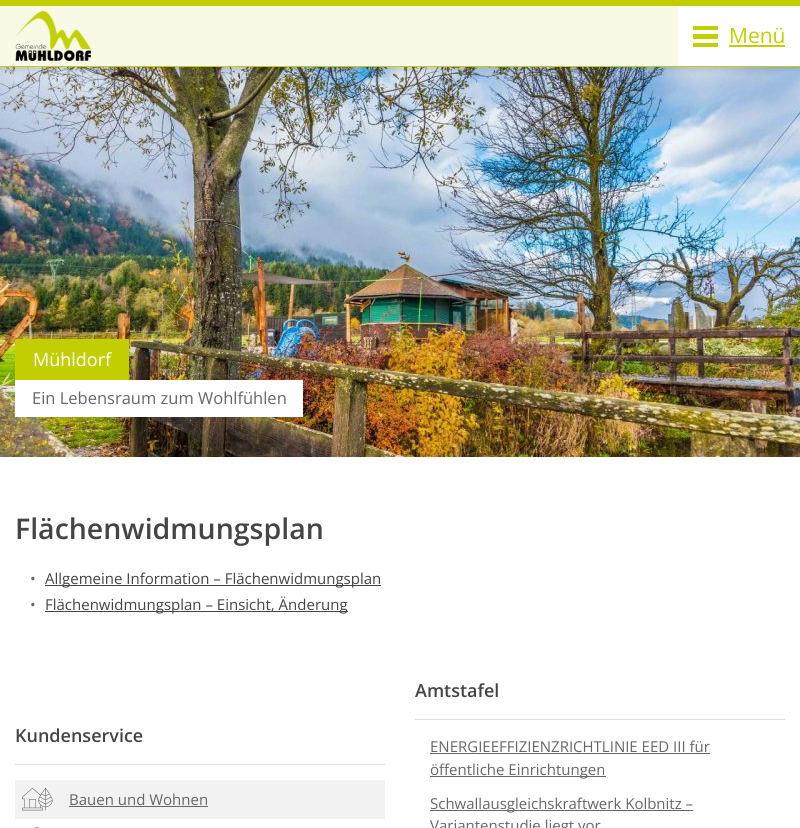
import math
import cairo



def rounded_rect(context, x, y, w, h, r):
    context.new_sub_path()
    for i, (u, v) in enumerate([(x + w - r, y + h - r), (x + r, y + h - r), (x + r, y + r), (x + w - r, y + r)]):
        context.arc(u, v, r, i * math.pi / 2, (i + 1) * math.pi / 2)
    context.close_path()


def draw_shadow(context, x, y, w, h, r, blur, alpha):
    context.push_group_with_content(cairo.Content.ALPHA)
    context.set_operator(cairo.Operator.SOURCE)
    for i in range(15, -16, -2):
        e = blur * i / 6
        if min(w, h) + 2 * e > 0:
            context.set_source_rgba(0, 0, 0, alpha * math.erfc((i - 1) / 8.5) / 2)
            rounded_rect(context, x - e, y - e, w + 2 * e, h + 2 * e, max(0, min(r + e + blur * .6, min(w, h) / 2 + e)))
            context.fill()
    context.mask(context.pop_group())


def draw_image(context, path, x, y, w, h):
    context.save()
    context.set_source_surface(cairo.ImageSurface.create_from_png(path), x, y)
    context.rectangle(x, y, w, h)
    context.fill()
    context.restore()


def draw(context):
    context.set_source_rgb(1, 1, 1)
    context.paint()
    draw_image(context, "images/2.png", 0, 67, 800, 390)
    context.set_source_rgb(0, 0, 0)
    draw_shadow(context, 0, 2, 800, 67, 0, 4, 0.15)
    context.set_source_rgb(194 / 255, 206 / 255, 0)
    context.rectangle(0, 0, 800, 6)
    context.fill()
    context.rectangle(0, 66, 800, 1)
    context.fill()
    context.set_source_rgb(249 / 255, 250 / 255, 230 / 255)
    context.rectangle(0, 6, 678, 60)
    context.fill()
    draw_image(context, "images/1.png", 15, 11, 76, 50)
    context.set_source_rgb(1, 1, 1)
    context.rectangle(678, 6, 122, 60)
    context.fill()
    context.set_source_rgb(194 / 255, 206 / 255, 0)
    context.rectangle(693, 26, 25, 4)
    context.fill()
    context.rectangle(693, 34, 25, 5)
    context.fill()
    context.rectangle(693, 43, 25, 4)
    context.fill()
    context.rectangle(729, 45, 56, 2)
    context.fill()
    context.rectangle(15, 339, 114, 41)
    context.fill()
    context.set_source_rgb(1, 1, 1)
    context.rectangle(15, 380, 288, 37)
    context.fill()
    context.set_source_rgb(68 / 255, 68 / 255, 68 / 255)
    context.rectangle(45, 585, 336, 1)
    context.fill()
    context.rectangle(45, 611, 303, 1)
    context.fill()
    context.set_source_rgb(221 / 255, 221 / 255, 221 / 255)
    context.rectangle(15, 764, 370, 1)
    context.fill()
    context.set_source_rgb(242 / 255, 242 / 255, 242 / 255)
    context.rectangle(15, 780, 370, 39)
    context.fill()
    draw_image(context, "images/3.png", 22, 787, 31, 24)
    context.set_source_rgb(102 / 255, 102 / 255, 102 / 255)
    context.rectangle(69, 806, 139, 1)
    context.fill()
    draw_image(context, "images/4.png", 34, 826, 6, 2)
    context.set_source_rgb(221 / 255, 221 / 255, 221 / 255)
    context.rectangle(415, 719, 370, 1)
    context.fill()
    context.set_source_rgb(102 / 255, 102 / 255, 102 / 255)
    context.rectangle(430, 753, 280, 1)
    context.fill()
    context.rectangle(430, 776, 176, 1)
    context.fill()
    context.rectangle(430, 810, 263, 1)
    context.fill()
    context.select_font_face("Open Sans")
    context.set_font_size(21)
    context.set_source_rgb(194 / 255, 206 / 255, 0)
    context.move_to(729, 43)
    context.show_text("Menü")
    context.set_font_size(18)
    context.set_source_rgb(1, 1, 1)
    context.move_to(33, 366)
    context.show_text("Mühldorf")
    context.set_font_size(16.5)
    context.set_source_rgb(102 / 255, 102 / 255, 102 / 255)
    context.move_to(32, 404)
    context.show_text("Ein Lebensraum zum Wohlfühlen")
    context.select_font_face("Open Sans SemiBold")
    context.set_font_size(28.5)
    context.set_source_rgb(68 / 255, 68 / 255, 68 / 255)
    context.move_to(15, 539)
    context.show_text("Flächenwidmungsplan")
    context.select_font_face("Open Sans")
    context.set_font_size(15)
    context.set_source_rgb(102 / 255, 102 / 255, 102 / 255)
    context.move_to(30, 584)
    context.show_text("•")
    context.set_source_rgb(68 / 255, 68 / 255, 68 / 255)
    context.move_to(45, 584)
    context.show_text("Allgemeine Information – Flächenwidmungsplan")
    context.set_source_rgb(102 / 255, 102 / 255, 102 / 255)
    context.move_to(30, 610)
    context.show_text("•")
    context.set_source_rgb(68 / 255, 68 / 255, 68 / 255)
    context.move_to(45, 610)
    context.show_text("Flächenwidmungsplan – Einsicht, Änderung")
    context.select_font_face("Open Sans SemiBold")
    context.set_font_size(18)
    context.move_to(15, 742)
    context.show_text("Kundenservice")
    context.select_font_face("Open Sans")
    context.set_font_size(15)
    context.set_source_rgb(102 / 255, 102 / 255, 102 / 255)
    context.move_to(69, 805)
    context.show_text("Bauen und Wohnen")
    context.select_font_face("Open Sans SemiBold")
    context.set_font_size(18)
    context.set_source_rgb(68 / 255, 68 / 255, 68 / 255)
    context.move_to(415, 697)
    context.show_text("Amtstafel")
    context.select_font_face("Open Sans")
    context.set_font_size(15)
    context.set_source_rgb(102 / 255, 102 / 255, 102 / 255)
    context.move_to(430, 752)
    context.show_text("ENERGIEEFFIZIENZRICHTLINIE EED III für")
    context.move_to(430, 775)
    context.show_text("öffentliche Einrichtungen")
    context.move_to(430, 809)
    context.show_text("Schwallausgleichskraftwerk Kolbnitz –")
    context.move_to(430, 831)
    context.show_text("Variantenstudie liegt vor")


surface = cairo.ImageSurface(cairo.Format.RGB24, 800, 828)
context = cairo.Context(surface)
options = cairo.FontOptions()
options.set_hint_metrics(cairo.HintMetrics.OFF)
options.set_hint_style(cairo.HintStyle.NONE)
context.set_font_options(options)
context.set_miter_limit(4)
draw(context)
surface.write_to_png("out.png")
